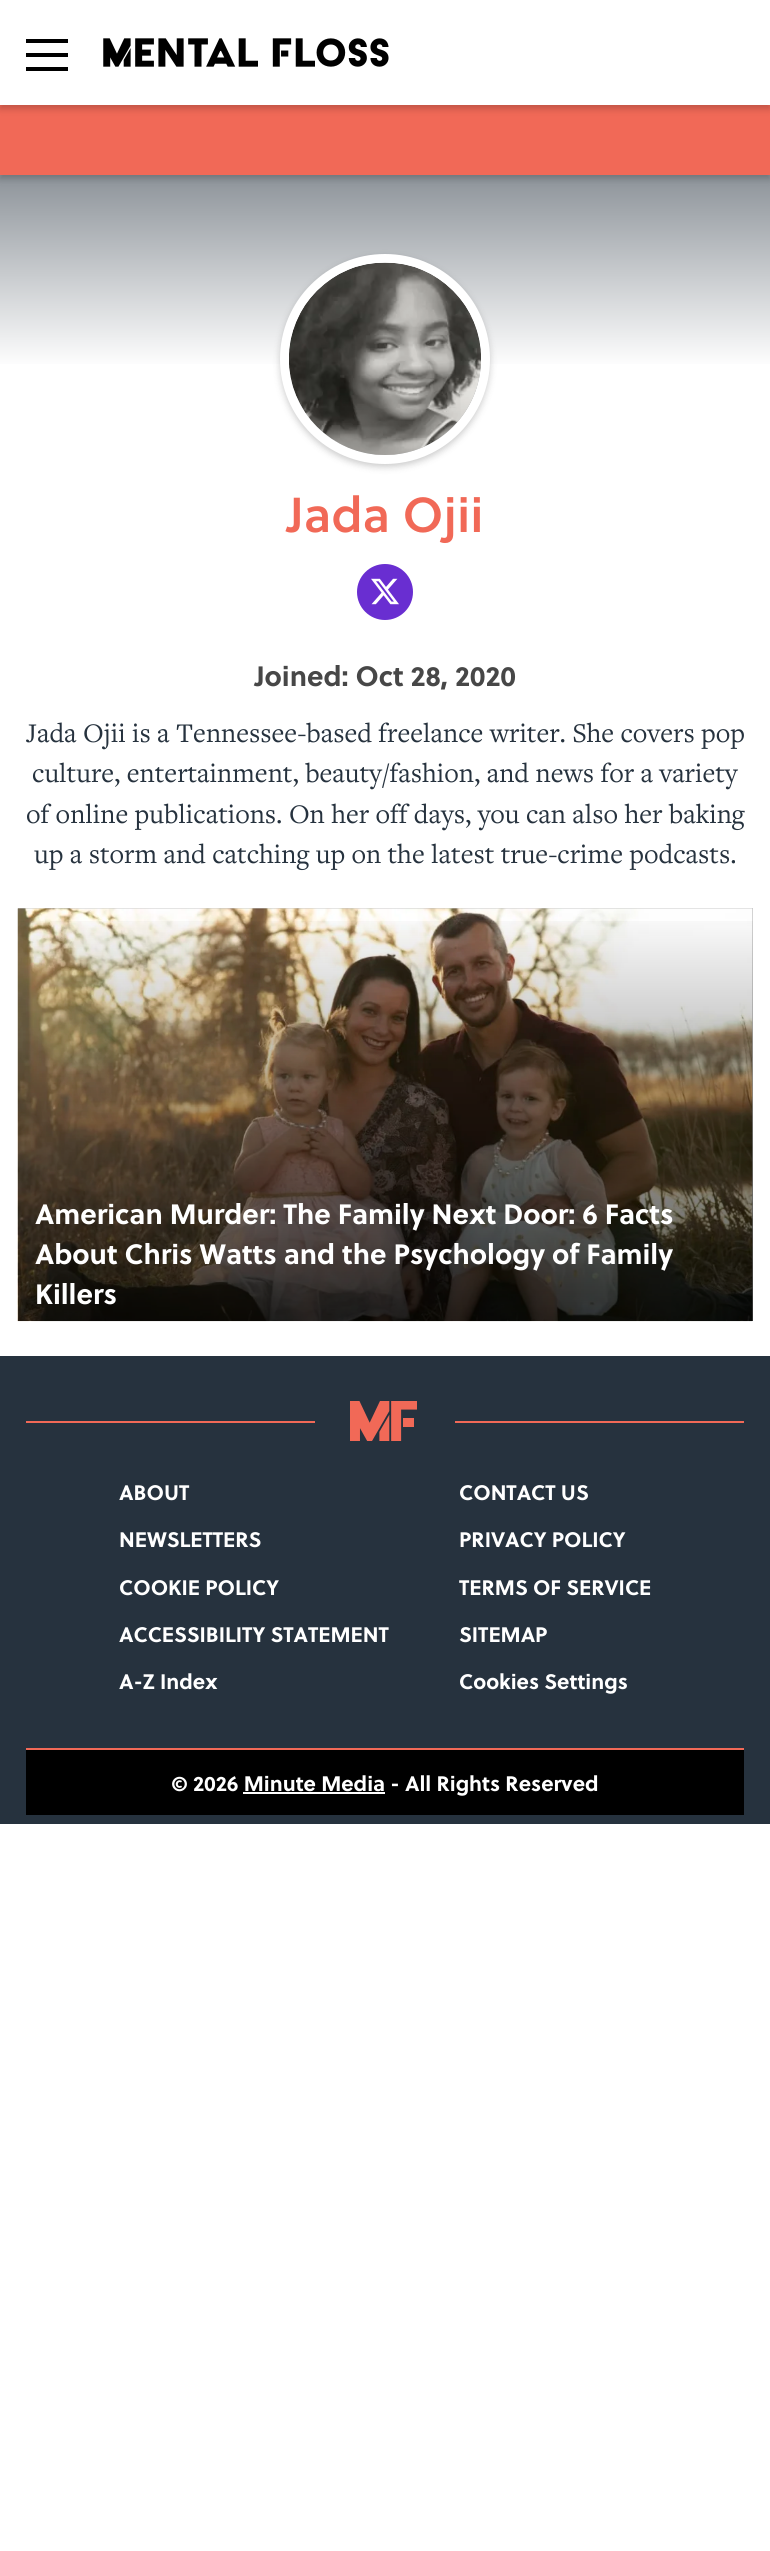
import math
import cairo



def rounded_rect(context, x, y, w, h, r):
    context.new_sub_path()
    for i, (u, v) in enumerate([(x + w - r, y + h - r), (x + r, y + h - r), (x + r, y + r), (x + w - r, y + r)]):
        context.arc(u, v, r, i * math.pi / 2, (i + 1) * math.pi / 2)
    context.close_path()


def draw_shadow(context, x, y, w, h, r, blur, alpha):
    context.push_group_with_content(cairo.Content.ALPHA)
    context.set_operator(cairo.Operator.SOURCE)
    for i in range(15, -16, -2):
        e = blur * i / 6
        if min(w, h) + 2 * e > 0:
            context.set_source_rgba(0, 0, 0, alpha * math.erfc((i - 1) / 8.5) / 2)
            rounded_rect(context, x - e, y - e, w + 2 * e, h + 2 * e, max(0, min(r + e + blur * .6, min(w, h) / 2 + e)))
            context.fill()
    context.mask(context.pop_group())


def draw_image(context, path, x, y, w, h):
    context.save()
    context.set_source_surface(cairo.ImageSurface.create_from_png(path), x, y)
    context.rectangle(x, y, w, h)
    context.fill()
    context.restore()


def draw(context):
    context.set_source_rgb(1, 1, 1)
    context.paint()
    gradient = cairo.LinearGradient(385, 368, 385, 0)
    gradient.add_color_stop_rgba(0, 1, 1, 1, 1)
    gradient.add_color_stop_rgba(1, 38 / 255, 50 / 255, 62 / 255, 1)
    context.set_source(gradient)
    context.rectangle(0, 175, 770, 189)
    context.fill()
    context.set_source_rgb(0, 0, 0)
    draw_shadow(context, 0, 109, 770, 70, 0, 3.5, 0.2)
    context.set_source_rgb(241 / 255, 105 / 255, 87 / 255)
    context.rectangle(0, 105, 770, 70)
    context.fill()
    context.set_source_rgb(0, 0, 0)
    draw_shadow(context, 0, 4, 770, 105, 0, 3.5, 0.2)
    context.set_source_rgb(1, 1, 1)
    context.rectangle(0, 0, 770, 105)
    context.fill()
    context.set_source_rgb(0, 0, 0)
    context.rectangle(26, 39, 42, 4)
    context.fill()
    context.rectangle(26, 53, 42, 4)
    context.fill()
    context.rectangle(26, 67, 42, 4)
    context.fill()
    draw_image(context, "images/1.png", 103, 38, 286, 29)
    context.set_source_rgb(0, 0, 0)
    draw_shadow(context, 280, 257, 210, 210, 105, 3.5, 0.2)
    context.arc(385, 359, 100.5, 0, 2 * math.pi)
    context.set_source_rgb(1, 1, 1)
    context.set_line_width(9)
    context.stroke()
    context.set_source_rgb(196 / 255, 196 / 255, 196 / 255)
    context.arc(385, 359, 96, 0, 2 * math.pi)
    context.fill()
    draw_image(context, "images/2.png", 289, 262, 192, 193)
    context.set_source_rgb(105 / 255, 46 / 255, 209 / 255)
    context.arc(385, 592, 28, 0, 2 * math.pi)
    context.fill()
    draw_image(context, "images/3.png", 371, 578, 28, 27)
    context.set_source_rgb(196 / 255, 196 / 255, 196 / 255)
    context.rectangle(18, 908, 735, 413)
    context.fill()
    draw_image(context, "images/4.png", 17, 908, 736, 414)
    gradient = cairo.LinearGradient(385, 1321, 385, 908)
    gradient.add_color_stop_rgba(0, 0, 0, 0, 0.7)
    gradient.add_color_stop_rgba(1, 0, 0, 0, 0)
    context.set_source(gradient)
    context.rectangle(18, 921, 735, 400)
    context.fill()
    context.set_source_rgb(38 / 255, 50 / 255, 62 / 255)
    context.rectangle(0, 1356, 770, 468)
    context.fill()
    context.set_source_rgb(241 / 255, 105 / 255, 87 / 255)
    context.rectangle(26, 1421, 289, 2)
    context.fill()
    draw_image(context, "images/5.png", 350, 1401, 67, 40)
    context.rectangle(455, 1421, 289, 2)
    context.fill()
    context.rectangle(26, 1748, 718, 2)
    context.fill()
    context.set_source_rgb(0, 0, 0)
    context.rectangle(26, 1750, 718, 65)
    context.fill()
    context.set_source_rgb(1, 1, 1)
    context.rectangle(243, 1792, 142, 2)
    context.fill()
    context.select_font_face("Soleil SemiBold")
    context.set_font_size(49)
    context.set_source_rgb(241 / 255, 105 / 255, 87 / 255)
    context.move_to(287, 532)
    context.show_text("Jada Ojii")
    context.select_font_face("Soleil", cairo.FontSlant.NORMAL, cairo.FontWeight.BOLD)
    context.set_font_size(28)
    context.set_source_rgb(71 / 255, 71 / 255, 71 / 255)
    context.move_to(255, 686)
    context.show_text("Joined: Oct 28, 2020")
    context.select_font_face("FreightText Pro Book")
    context.set_source_rgb(38 / 255, 50 / 255, 62 / 255)
    context.move_to(26, 742)
    context.show_text("Jada Ojii is a Tennessee-based freelance writer. She covers pop")
    context.move_to(32, 782)
    context.show_text("culture, entertainment, beauty/fashion, and news for a variety")
    context.move_to(26, 823)
    context.show_text("of online publications. On her off days, you can also her baking")
    context.move_to(34, 863)
    context.show_text("up a storm and catching up on the latest true-crime podcasts.")
    context.select_font_face("Soleil", cairo.FontSlant.NORMAL, cairo.FontWeight.BOLD)
    context.set_source_rgb(1, 1, 1)
    context.move_to(35, 1224)
    context.show_text("American Murder: The Family Next Door: 6 Facts")
    context.move_to(35, 1264)
    context.show_text("About Chris Watts and the Psychology of Family")
    context.move_to(35, 1304)
    context.show_text("Killers")
    context.set_font_size(21)
    context.move_to(119, 1500)
    context.show_text("ABOUT")
    context.move_to(459, 1500)
    context.show_text("CONTACT US")
    context.move_to(119, 1547)
    context.show_text("NEWSLETTERS")
    context.move_to(459, 1547)
    context.show_text("PRIVACY POLICY")
    context.move_to(119, 1595)
    context.show_text("COOKIE POLICY")
    context.move_to(459, 1595)
    context.show_text("TERMS OF SERVICE")
    context.move_to(119, 1642)
    context.show_text("ACCESSIBILITY STATEMENT")
    context.move_to(459, 1642)
    context.show_text("SITEMAP")
    context.move_to(119, 1689)
    context.show_text("A-Z Index")
    context.move_to(459, 1689)
    context.show_text("Cookies Settings")
    context.move_to(171, 1791)
    context.show_text("© 2026 Minute Media - All Rights Reserved")


surface = cairo.ImageSurface(cairo.Format.RGB24, 770, 2551)
context = cairo.Context(surface)
options = cairo.FontOptions()
options.set_hint_metrics(cairo.HintMetrics.OFF)
options.set_hint_style(cairo.HintStyle.NONE)
context.set_font_options(options)
context.set_miter_limit(4)
draw(context)
surface.write_to_png("out.png")
